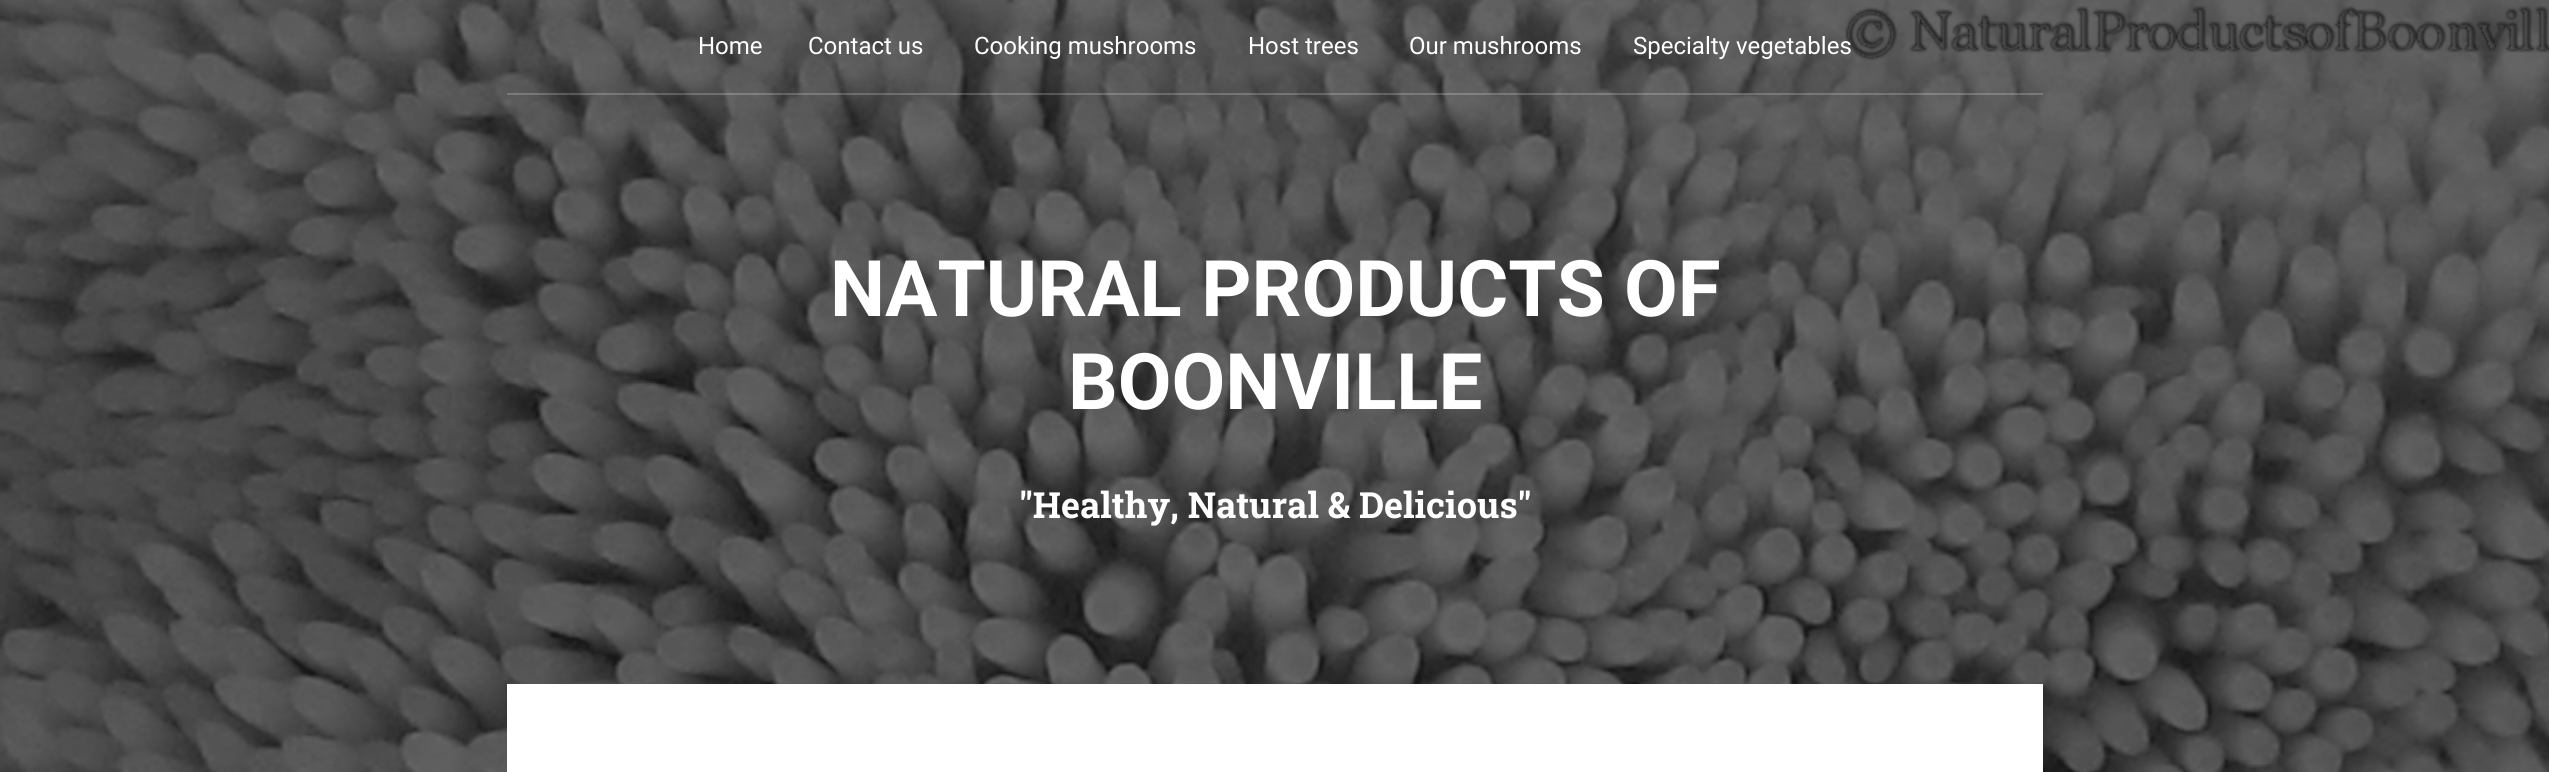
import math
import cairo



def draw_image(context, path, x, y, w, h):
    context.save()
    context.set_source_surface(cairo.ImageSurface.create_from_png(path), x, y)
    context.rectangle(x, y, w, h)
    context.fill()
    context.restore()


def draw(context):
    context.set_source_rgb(1, 1, 1)
    context.paint()
    draw_image(context, "images/1.png", 0, 0, 2549, 772)
    context.set_source_rgba(1, 1, 1, 0.2)
    context.rectangle(507, 93, 1536, 2)
    context.fill()
    context.set_source_rgb(1, 1, 1)
    context.rectangle(507, 684, 1536, 88)
    context.fill()
    context.select_font_face("Roboto")
    context.set_font_size(24)
    context.move_to(698, 54)
    context.show_text("Home")
    context.move_to(808, 54)
    context.show_text("Contact us")
    context.move_to(974, 54)
    context.show_text("Cooking mushrooms")
    context.move_to(1248, 54)
    context.show_text("Host trees")
    context.move_to(1409, 54)
    context.show_text("Our mushrooms")
    context.move_to(1633, 54)
    context.show_text("Specialty vegetables")
    context.select_font_face("Roboto", cairo.FontSlant.NORMAL, cairo.FontWeight.BOLD)
    context.set_font_size(78)
    context.move_to(830, 316)
    context.show_text("NATURAL PRODUCTS OF")
    context.move_to(1068, 409)
    context.show_text("BOONVILLE")
    context.select_font_face("Roboto Slab", cairo.FontSlant.NORMAL, cairo.FontWeight.BOLD)
    context.set_font_size(36)
    context.move_to(1019, 518)
    context.show_text("\"Healthy, Natural & Delicious\"")


surface = cairo.ImageSurface(cairo.Format.RGB24, 2549, 772)
context = cairo.Context(surface)
options = cairo.FontOptions()
options.set_hint_metrics(cairo.HintMetrics.OFF)
options.set_hint_style(cairo.HintStyle.NONE)
context.set_font_options(options)
context.set_miter_limit(4)
draw(context)
surface.write_to_png("out.png")
